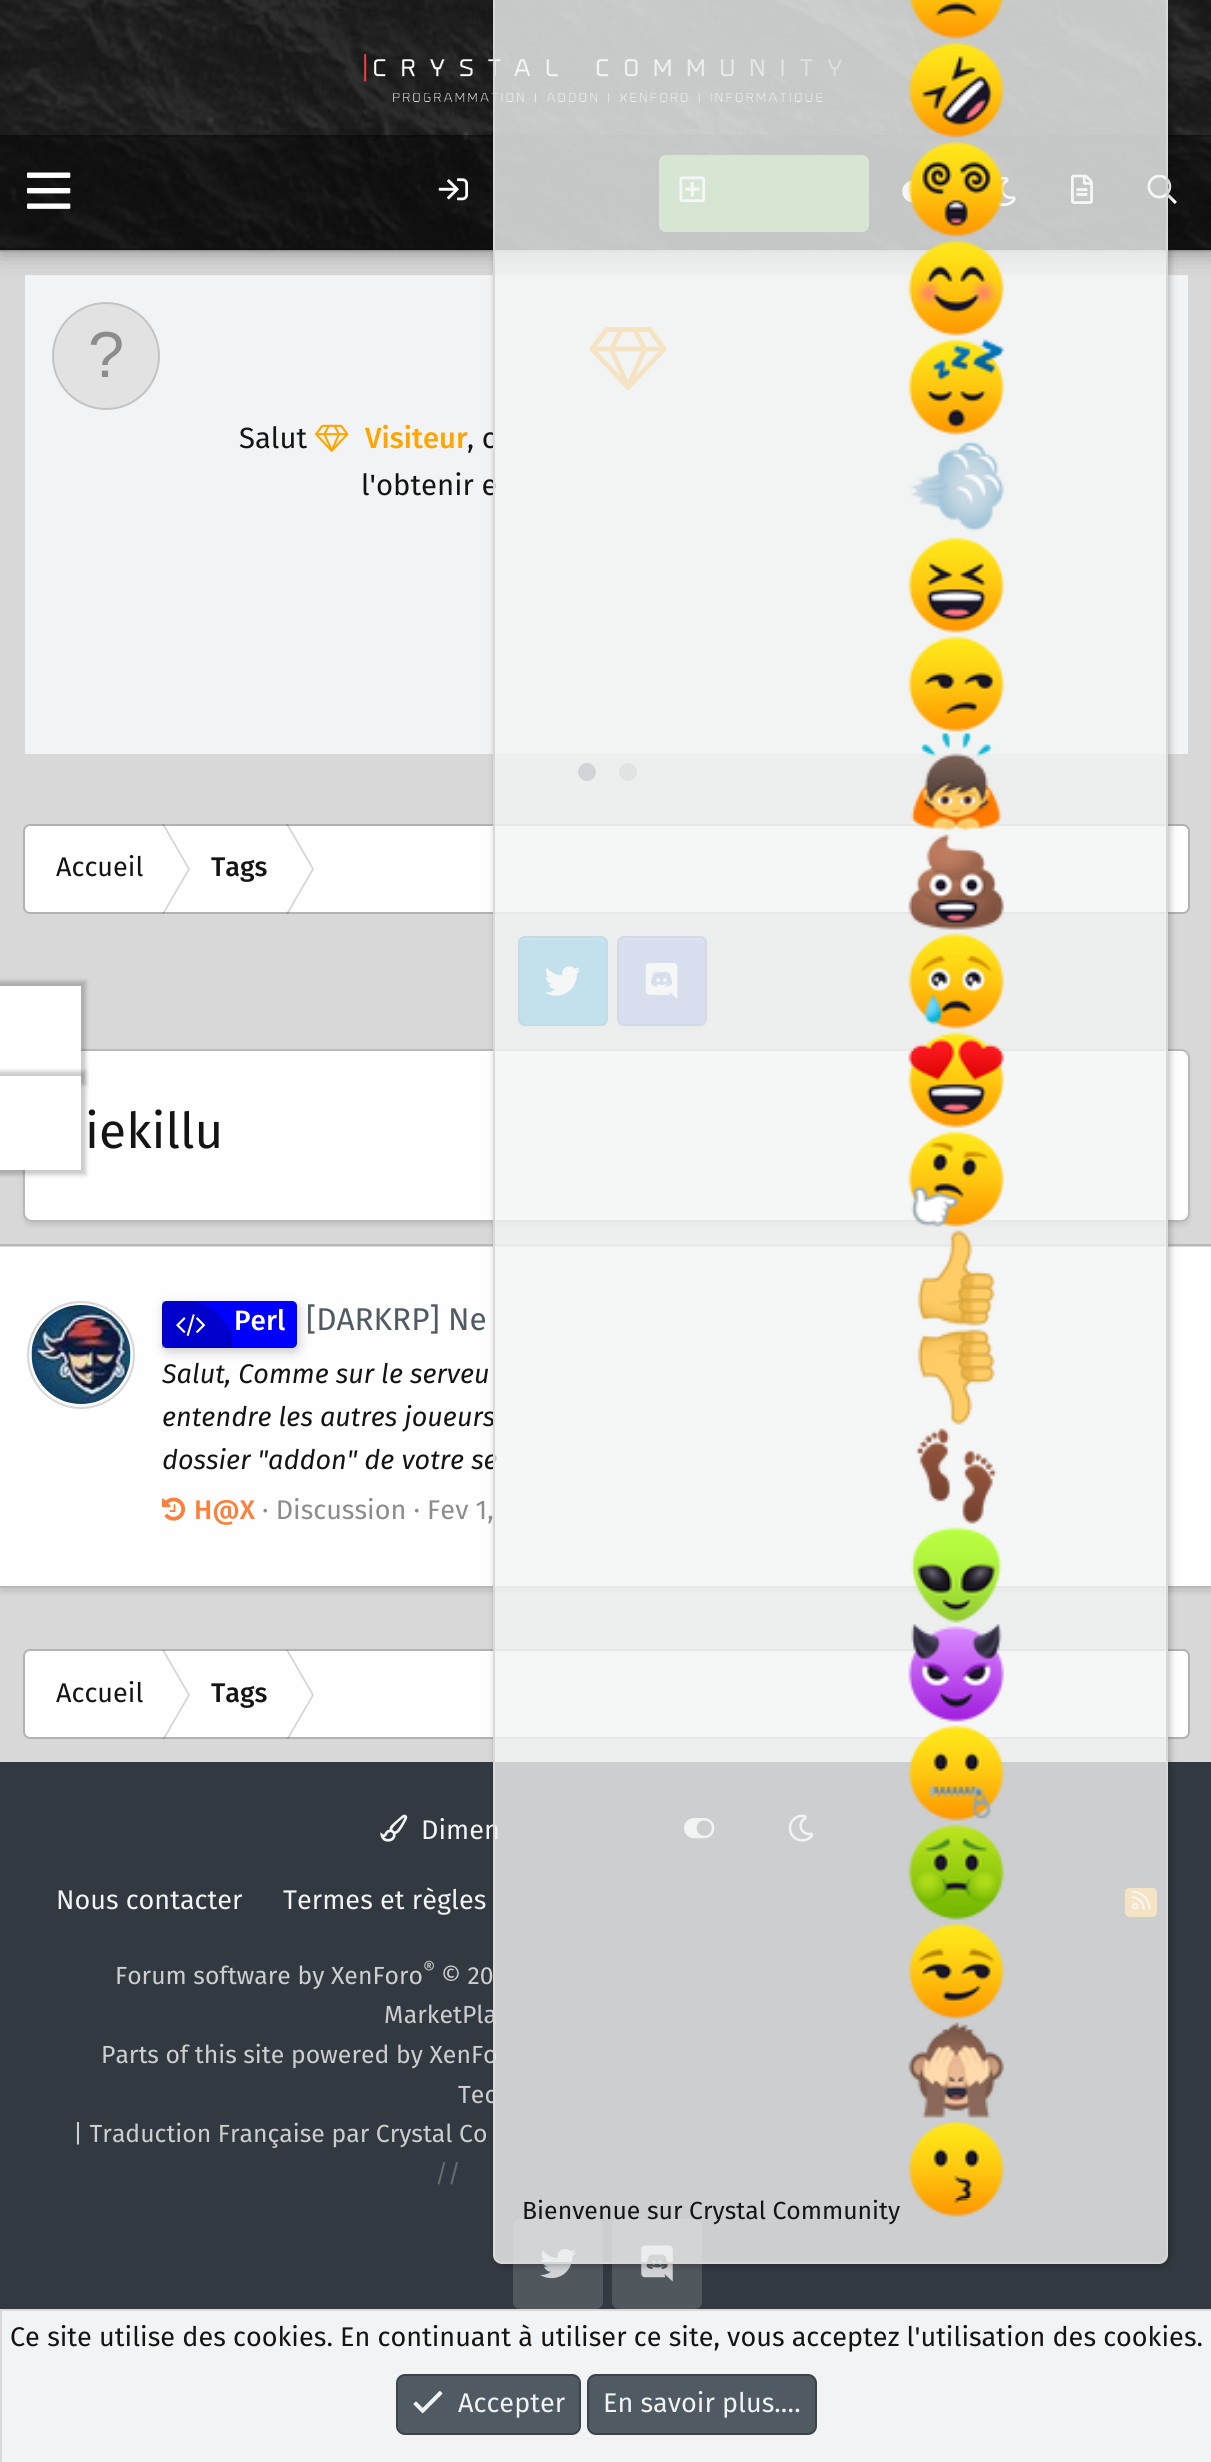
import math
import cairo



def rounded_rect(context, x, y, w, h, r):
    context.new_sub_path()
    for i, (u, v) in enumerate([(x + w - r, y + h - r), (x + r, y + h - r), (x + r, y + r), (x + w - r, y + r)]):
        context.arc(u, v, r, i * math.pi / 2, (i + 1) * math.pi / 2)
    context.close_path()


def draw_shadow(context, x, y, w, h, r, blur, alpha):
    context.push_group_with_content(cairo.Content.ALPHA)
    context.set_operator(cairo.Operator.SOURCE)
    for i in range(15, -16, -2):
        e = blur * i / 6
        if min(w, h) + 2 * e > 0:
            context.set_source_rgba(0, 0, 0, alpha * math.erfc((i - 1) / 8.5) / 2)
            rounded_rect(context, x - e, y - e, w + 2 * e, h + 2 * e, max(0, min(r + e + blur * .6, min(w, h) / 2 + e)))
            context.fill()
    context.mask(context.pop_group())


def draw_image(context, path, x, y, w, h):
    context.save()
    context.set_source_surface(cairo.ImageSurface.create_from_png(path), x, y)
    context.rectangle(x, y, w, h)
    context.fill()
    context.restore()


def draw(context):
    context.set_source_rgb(216 / 255, 216 / 255, 216 / 255)
    context.paint()
    context.save()
    context.set_fill_rule(cairo.FillRule.EVEN_ODD)
    context.new_path()
    context.move_to(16, 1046)
    context.line_to(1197, 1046)
    context.line_to(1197, 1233)
    context.line_to(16, 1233)
    context.close_path()
    context.move_to(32, 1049)
    context.line_to(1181, 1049)
    context.curve_to(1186, 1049, 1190, 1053, 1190, 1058)
    context.line_to(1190, 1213)
    context.curve_to(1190, 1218, 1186, 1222, 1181, 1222)
    context.line_to(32, 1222)
    context.curve_to(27, 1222, 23, 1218, 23, 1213)
    context.line_to(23, 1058)
    context.curve_to(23, 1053, 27, 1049, 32, 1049)
    context.close_path()
    context.clip()
    context.set_source_rgb(0, 0, 0)
    draw_shadow(context, 23, 1053, 1167, 173, 9, 2, 0.08)
    context.restore()
    context.set_source_rgb(254 / 255, 254 / 255, 254 / 255)
    rounded_rect(context, 25, 1051, 1163, 169, 7)
    context.fill()
    rounded_rect(context, 24, 1050, 1165, 171, 8)
    context.set_source_rgba(20 / 255, 20 / 255, 20 / 255, 0.16)
    context.stroke()
    context.set_source_rgb(0, 0, 0)
    draw_shadow(context, -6, 981, 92, 104, 0, 2, 0.2)
    context.set_source_rgb(1, 1, 1)
    context.rectangle(0, 986, 81, 90)
    context.fill()
    context.set_source_rgb(0, 0, 0)
    draw_shadow(context, -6, 1071, 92, 104, 0, 2, 0.2)
    context.set_source_rgb(1, 1, 1)
    context.rectangle(0, 1076, 81, 94)
    context.fill()
    context.set_source_rgb(242 / 255, 243 / 255, 244 / 255)
    context.rectangle(25, 275, 1163, 479)
    context.fill()
    context.set_source_rgb(0, 0, 0)
    draw_shadow(context, 0, 2, 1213, 250, 0, 11, 0.35)
    context.set_source_rgb(38 / 255, 38 / 255, 38 / 255)
    context.rectangle(0, 0, 1211, 250)
    context.fill()
    draw_image(context, "images/1.png", 0, 0, 1211, 252)
    draw_image(context, "images/2.png", 364, 54, 478, 50)
    context.set_source_rgba(0, 0, 0, 0.4)
    context.rectangle(0, 135, 1211, 115)
    context.fill()
    context.set_source_rgba(0, 0, 0, 0.2)
    context.rectangle(0, 135, 1211, 2)
    context.fill()
    context.rectangle(0, 248, 1211, 2)
    context.fill()
    draw_image(context, "images/3.png", 27, 172, 44, 37)
    draw_image(context, "images/4.png", 438, 178, 30, 23)
    context.set_source_rgb(103 / 255, 175 / 255, 81 / 255)
    rounded_rect(context, 659, 155, 210, 77, 7)
    context.fill()
    draw_image(context, "images/5.png", 679, 176, 27, 27)
    draw_image(context, "images/6.png", 902, 180, 16, 23)
    draw_image(context, "images/7.png", 994, 176, 22, 31)
    draw_image(context, "images/8.png", 1071, 174, 22, 30)
    draw_image(context, "images/9.png", 1147, 174, 30, 30)
    context.set_source_rgb(226 / 255, 226 / 255, 226 / 255)
    context.arc(106, 356, 54, 0, 2 * math.pi)
    context.fill()
    draw_image(context, "images/10.png", 589, 327, 78, 63)
    draw_image(context, "images/11.png", 315, 424, 34, 28)
    context.set_source_rgb(79 / 255, 90 / 255, 98 / 255)
    context.arc(587, 772, 9, 0, 2 * math.pi)
    context.fill()
    context.set_source_rgb(157 / 255, 157 / 255, 157 / 255)
    context.arc(628, 772, 9, 0, 2 * math.pi)
    context.fill()
    context.set_source_rgb(254 / 255, 254 / 255, 254 / 255)
    rounded_rect(context, 23, 824, 1167, 90, 7)
    context.fill()
    context.set_source_rgb(213 / 255, 213 / 255, 213 / 255)
    context.new_path()
    context.move_to(162, 824)
    context.line_to(164, 824)
    context.line_to(190, 869)
    context.line_to(188, 869)
    context.close_path()
    context.fill()
    context.new_path()
    context.move_to(188, 869)
    context.line_to(190, 869)
    context.line_to(164, 914)
    context.line_to(162, 914)
    context.close_path()
    context.fill()
    context.new_path()
    context.move_to(286, 824)
    context.line_to(288, 824)
    context.line_to(314, 869)
    context.line_to(312, 869)
    context.close_path()
    context.fill()
    context.new_path()
    context.move_to(312, 869)
    context.line_to(314, 869)
    context.line_to(288, 914)
    context.line_to(286, 914)
    context.close_path()
    context.fill()
    rounded_rect(context, 24, 825, 1165, 88, 6)
    context.set_source_rgba(0, 0, 0, 0.3)
    context.stroke()
    context.set_source_rgb(0, 0, 0)
    draw_shadow(context, 518, 938, 90, 90, 7, 3.5, 0.1)
    context.set_source_rgb(0, 151 / 255, 211 / 255)
    rounded_rect(context, 518, 936, 90, 90, 7)
    context.fill()
    context.set_source_rgb(38 / 255, 167 / 255, 218 / 255)
    context.new_path()
    context.move_to(524, 940)
    context.line_to(601, 940)
    context.curve_to(603, 940, 605, 943, 605, 945)
    context.curve_to(605, 935, 596, 938, 588, 938)
    context.line_to(538, 938)
    context.curve_to(529, 938, 520, 935, 520, 945)
    context.curve_to(520, 943, 522, 940, 524, 940)
    context.close_path()
    context.fill()
    draw_image(context, "images/12.png", 544, 966, 37, 30)
    rounded_rect(context, 519, 937, 88, 88, 6)
    context.set_source_rgba(0, 0, 0, 0.2)
    context.stroke()
    context.set_source_rgb(0, 0, 0)
    draw_shadow(context, 617, 938, 90, 90, 7, 3.5, 0.1)
    context.set_source_rgb(114 / 255, 137 / 255, 218 / 255)
    rounded_rect(context, 617, 936, 90, 90, 7)
    context.fill()
    context.set_source_rgb(135 / 255, 155 / 255, 224 / 255)
    context.new_path()
    context.move_to(623, 940)
    context.line_to(700, 940)
    context.curve_to(702, 940, 704, 943, 704, 945)
    context.curve_to(704, 935, 695, 938, 686, 938)
    context.line_to(636, 938)
    context.curve_to(628, 938, 619, 935, 619, 945)
    context.curve_to(619, 943, 621, 940, 623, 940)
    context.close_path()
    context.fill()
    draw_image(context, "images/13.png", 645, 963, 33, 36)
    rounded_rect(context, 618, 937, 88, 88, 6)
    context.set_source_rgba(0, 0, 0, 0.2)
    context.stroke()
    context.set_source_rgb(0, 0, 0)
    draw_shadow(context, 0, 1249, 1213, 344, 0, 2, 0.08)
    context.set_source_rgb(254 / 255, 254 / 255, 254 / 255)
    context.rectangle(0, 1247, 1211, 339)
    context.fill()
    context.set_source_rgb(185 / 255, 185 / 255, 185 / 255)
    context.rectangle(0, 1244, 1211, 2)
    context.fill()
    context.rectangle(0, 1586, 1211, 2)
    context.fill()
    context.arc(81, 1355, 51.5, 0, 2 * math.pi)
    context.set_source_rgb(249 / 255, 249 / 255, 249 / 255)
    context.set_line_width(5)
    context.stroke()
    draw_image(context, "images/14.png", 31, 1305, 100, 99)
    context.arc(81, 1355, 53, 0, 2 * math.pi)
    context.set_source_rgb(215 / 255, 215 / 255, 215 / 255)
    context.set_line_width(2)
    context.stroke()
    context.set_source_rgb(0, 0, 0)
    draw_shadow(context, 164, 1305, 135, 47, 5, 5.5, 0.2)
    context.set_source_rgb(0, 0, 1)
    rounded_rect(context, 162, 1301, 135, 47, 5)
    context.fill()
    context.set_source_rgba(0, 0, 0, 0.2)
    context.new_path()
    context.move_to(162, 1301)
    context.line_to(185, 1301)
    context.curve_to(211, 1301, 232, 1322, 232, 1348)
    context.line_to(162, 1348)
    context.close_path()
    context.fill()
    context.set_source_rgba(0, 0, 0, 0.1)
    context.rectangle(227, 1325, 5, 23)
    context.fill()
    draw_image(context, "images/15.png", 176, 1314, 30, 22)
    draw_image(context, "images/16.png", 162, 1497, 24, 24)
    context.set_source_rgb(254 / 255, 254 / 255, 254 / 255)
    rounded_rect(context, 23, 1649, 1167, 90, 7)
    context.fill()
    context.set_source_rgb(213 / 255, 213 / 255, 213 / 255)
    context.new_path()
    context.move_to(162, 1650)
    context.line_to(164, 1650)
    context.line_to(190, 1695)
    context.line_to(188, 1695)
    context.close_path()
    context.fill()
    context.save()
    context.rectangle(23, 1649, 1167, 90)
    context.clip()
    context.new_path()
    context.move_to(188, 1695)
    context.line_to(190, 1695)
    context.line_to(164, 1740)
    context.line_to(162, 1740)
    context.close_path()
    context.fill()
    context.restore()
    context.new_path()
    context.move_to(286, 1650)
    context.line_to(288, 1650)
    context.line_to(314, 1695)
    context.line_to(312, 1695)
    context.close_path()
    context.fill()
    context.save()
    context.rectangle(23, 1649, 1167, 90)
    context.clip()
    context.new_path()
    context.move_to(312, 1695)
    context.line_to(314, 1695)
    context.line_to(288, 1740)
    context.line_to(286, 1740)
    context.close_path()
    context.fill()
    context.restore()
    rounded_rect(context, 24, 1650, 1165, 88, 6)
    context.set_source_rgba(0, 0, 0, 0.3)
    context.stroke()
    context.set_source_rgb(50 / 255, 57 / 255, 64 / 255)
    context.rectangle(0, 1762, 1211, 547)
    context.fill()
    draw_image(context, "images/17.png", 380, 1814, 28, 28)
    draw_image(context, "images/18.png", 684, 1818, 31, 21)
    draw_image(context, "images/19.png", 788, 1814, 26, 28)
    context.set_source_rgb(1, 165 / 255, 0)
    rounded_rect(context, 1125, 1888, 32, 29, 5)
    context.fill()
    draw_image(context, "images/20.png", 1131, 1890, 20, 20)
    draw_image(context, "images/21.png", 540, 2248, 36, 31)
    context.set_source_rgba(242 / 255, 243 / 255, 244 / 255, 0.16)
    rounded_rect(context, 513, 2219, 90, 90, 7)
    context.fill()
    draw_image(context, "images/22.png", 641, 2245, 32, 37)
    rounded_rect(context, 612, 2219, 90, 90, 7)
    context.fill()
    context.save()
    context.set_fill_rule(cairo.FillRule.EVEN_ODD)
    context.new_path()
    context.move_to(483, 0)
    context.line_to(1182, 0)
    context.line_to(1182, 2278)
    context.line_to(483, 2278)
    context.close_path()
    context.move_to(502, -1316)
    context.line_to(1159, -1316)
    context.curve_to(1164, -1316, 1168, -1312, 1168, -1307)
    context.line_to(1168, 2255)
    context.curve_to(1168, 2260, 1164, 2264, 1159, 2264)
    context.line_to(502, 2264)
    context.curve_to(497, 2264, 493, 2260, 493, 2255)
    context.line_to(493, -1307)
    context.curve_to(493, -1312, 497, -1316, 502, -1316)
    context.close_path()
    context.clip()
    context.set_source_rgb(0, 0, 0)
    draw_shadow(context, 495, -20, 675, 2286, 9, 3.5, 0.25)
    context.restore()
    context.set_source_rgb(242 / 255, 243 / 255, 244 / 255)
    context.rectangle(2, 2311, 1209, 151)
    context.fill()
    context.set_source_rgb(79 / 255, 90 / 255, 98 / 255)
    rounded_rect(context, 397, 2375, 183, 59, 8)
    context.fill_preserve()
    context.set_source_rgb(59 / 255, 67 / 255, 73 / 255)
    context.stroke()
    draw_image(context, "images/24.png", 413, 2391, 30, 23)
    context.set_source_rgb(79 / 255, 90 / 255, 98 / 255)
    rounded_rect(context, 588, 2375, 228, 59, 8)
    context.fill_preserve()
    context.set_source_rgb(59 / 255, 67 / 255, 73 / 255)
    context.stroke()
    context.select_font_face("Liberation Sans")
    context.set_font_size(65)
    context.set_source_rgb(140 / 255, 140 / 255, 140 / 255)
    context.move_to(88, 377)
    context.show_text("?")
    context.new_path()
    context.arc(106, 356, 53, 0, 2 * math.pi)
    context.set_source_rgba(20 / 255, 20 / 255, 20 / 255, 0.15)
    context.stroke()
    context.select_font_face("Fira Sans")
    context.set_font_size(29.25)
    context.set_source_rgb(20 / 255, 20 / 255, 20 / 255)
    context.move_to(239, 448)
    context.show_text("Salut")
    context.select_font_face("Fira Sans Medium")
    context.set_source_rgb(1, 165 / 255, 0)
    context.move_to(365, 448)
    context.show_text("Visiteur")
    context.select_font_face("Fira Sans")
    context.set_source_rgb(20 / 255, 20 / 255, 20 / 255)
    context.move_to(467, 448)
    context.show_text(", c")
    context.move_to(361, 495)
    context.show_text("l'obtenir e")
    context.set_font_size(27)
    context.move_to(56, 876)
    context.show_text("Accueil")
    context.select_font_face("Fira Sans Medium")
    context.move_to(211, 876)
    context.show_text("Tags")
    context.select_font_face("Fira Sans")
    context.set_font_size(49.5)
    context.move_to(85, 1148)
    context.show_text("iekillu")
    context.select_font_face("Fira Sans Medium")
    context.set_font_size(28)
    context.set_source_rgb(1, 1, 1)
    context.move_to(234, 1330)
    context.show_text("Perl")
    context.select_font_face("Fira Sans")
    context.set_font_size(31.5)
    context.set_source_rgb(79 / 255, 90 / 255, 98 / 255)
    context.move_to(306, 1330)
    context.show_text("[DARKRP] Ne")
    context.select_font_face("Fira Sans", cairo.FontSlant.ITALIC)
    context.set_font_size(27)
    context.set_source_rgb(20 / 255, 20 / 255, 20 / 255)
    context.move_to(162, 1383)
    context.show_text("Salut, Comme sur le serveu")
    context.move_to(162, 1426)
    context.show_text("entendre les autres joueurs")
    context.move_to(162, 1469)
    context.show_text("dossier \"addon\" de votre se")
    context.select_font_face("Fira Sans Medium")
    context.set_source_rgb(252 / 255, 127 / 255, 60 / 255)
    context.move_to(194, 1519)
    context.show_text("H@X")
    context.select_font_face("Fira Sans")
    context.set_source_rgb(140 / 255, 140 / 255, 140 / 255)
    context.move_to(262, 1519)
    context.show_text("· Discussion · Fev 1,")
    context.set_source_rgb(20 / 255, 20 / 255, 20 / 255)
    context.move_to(56, 1702)
    context.show_text("Accueil")
    context.select_font_face("Fira Sans Medium")
    context.move_to(211, 1702)
    context.show_text("Tags")
    context.select_font_face("Fira Sans")
    context.set_source_rgb(242 / 255, 243 / 255, 244 / 255)
    context.move_to(421, 1839)
    context.show_text("Dimen")
    context.move_to(56, 1909)
    context.show_text("Nous contacter")
    context.move_to(283, 1909)
    context.show_text("Termes et règles")
    context.set_font_size(24.75)
    context.set_source_rgb(204 / 255, 206 / 255, 208 / 255)
    context.move_to(115, 1984)
    context.show_text("Forum software by XenForo")
    context.set_font_size(19)
    context.move_to(423, 1975)
    context.show_text("®")
    context.set_font_size(24.75)
    context.move_to(441, 1984)
    context.show_text("© 20")
    context.move_to(384, 2023)
    context.show_text("MarketPla")
    context.move_to(101, 2063)
    context.show_text("Parts of this site powered by XenFo")
    context.move_to(458, 2103)
    context.show_text("Tec")
    context.move_to(73, 2142)
    context.show_text("| Traduction Française par Crystal Co")
    context.set_source_rgb(104 / 255, 109 / 255, 114 / 255)
    context.move_to(435, 2182)
    context.show_text("//")
    context.set_source_rgba(242 / 255, 243 / 255, 244 / 255, 0.8)
    rounded_rect(context, 494, -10, 673, 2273, 8)
    context.fill_preserve()
    context.set_source_rgb(216 / 255, 216 / 255, 216 / 255)
    context.stroke()
    context.set_source_rgb(20 / 255, 20 / 255, 20 / 255)
    context.move_to(522, 2219)
    context.show_text("Bienvenue sur Crystal Community")
    draw_image(context, "images/23.png", 908, 0, 97, 2217)
    context.set_font_size(27)
    context.move_to(10, 2346)
    context.show_text("Ce site utilise des cookies. En continuant à utiliser ce site, vous acceptez l'utilisation des cookies.")
    context.set_source_rgb(242 / 255, 243 / 255, 244 / 255)
    context.move_to(458, 2412)
    context.show_text("Accepter")
    context.move_to(603, 2412)
    context.show_text("En savoir plus.…")


surface = cairo.ImageSurface(cairo.Format.RGB24, 1211, 2462)
context = cairo.Context(surface)
options = cairo.FontOptions()
options.set_hint_metrics(cairo.HintMetrics.OFF)
options.set_hint_style(cairo.HintStyle.NONE)
context.set_font_options(options)
context.set_miter_limit(4)
draw(context)
surface.write_to_png("out.png")
